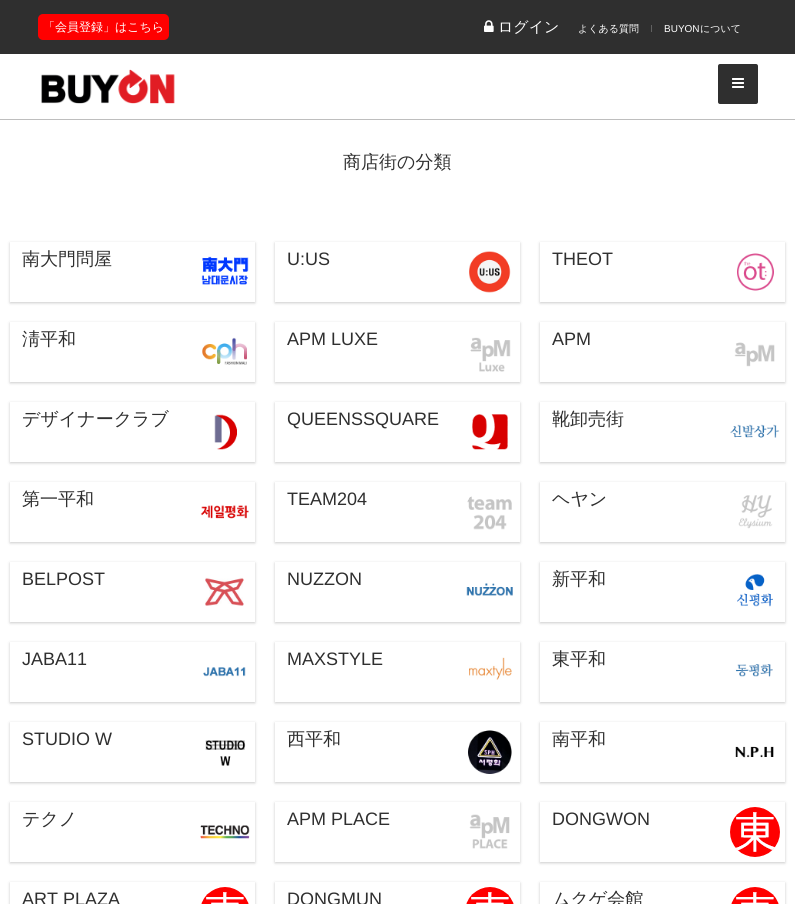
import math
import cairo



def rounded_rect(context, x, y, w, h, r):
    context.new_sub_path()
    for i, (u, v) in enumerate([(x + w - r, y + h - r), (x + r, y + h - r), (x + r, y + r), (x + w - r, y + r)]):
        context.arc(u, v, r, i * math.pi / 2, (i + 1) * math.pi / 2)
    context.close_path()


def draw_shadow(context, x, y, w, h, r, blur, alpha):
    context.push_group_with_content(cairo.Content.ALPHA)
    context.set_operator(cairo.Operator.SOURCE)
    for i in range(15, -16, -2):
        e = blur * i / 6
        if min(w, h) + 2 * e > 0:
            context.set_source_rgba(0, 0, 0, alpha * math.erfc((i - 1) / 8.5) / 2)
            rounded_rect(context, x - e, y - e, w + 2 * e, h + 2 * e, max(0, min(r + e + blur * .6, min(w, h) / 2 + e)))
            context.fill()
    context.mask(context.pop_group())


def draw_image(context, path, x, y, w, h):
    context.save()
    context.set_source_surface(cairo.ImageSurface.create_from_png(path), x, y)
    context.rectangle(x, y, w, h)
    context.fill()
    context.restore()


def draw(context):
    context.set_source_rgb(1, 1, 1)
    context.paint()
    context.set_source_rgb(47 / 255, 47 / 255, 47 / 255)
    context.rectangle(0, 0, 795, 54)
    context.fill()
    context.set_source_rgb(1, 0, 0)
    rounded_rect(context, 38, 14, 131, 26, 5)
    context.fill()
    draw_image(context, "images/1.png", 484, 20, 10, 12)
    context.set_source_rgb(97 / 255, 97 / 255, 97 / 255)
    context.rectangle(651, 25, 1, 7)
    context.fill()
    draw_image(context, "images/2.png", 41, 69, 134, 35)
    context.set_source_rgb(47 / 255, 47 / 255, 47 / 255)
    rounded_rect(context, 718, 64, 40, 40, 2)
    context.fill()
    draw_image(context, "images/3.png", 732, 78, 12, 10)
    context.set_source_rgb(190 / 255, 190 / 255, 190 / 255)
    context.rectangle(0, 119, 795, 1)
    context.fill()
    context.save()
    context.set_fill_rule(cairo.FillRule.EVEN_ODD)
    context.new_path()
    context.move_to(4, 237)
    context.line_to(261, 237)
    context.line_to(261, 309)
    context.line_to(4, 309)
    context.close_path()
    context.move_to(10, 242)
    context.line_to(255, 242)
    context.line_to(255, 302)
    context.line_to(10, 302)
    context.close_path()
    context.clip()
    context.set_source_rgb(0, 0, 0)
    draw_shadow(context, 10, 243, 245, 60, 0, 1.5, 0.21)
    context.restore()
    draw_image(context, "images/4.png", 201, 256, 48, 29)
    context.save()
    context.set_fill_rule(cairo.FillRule.EVEN_ODD)
    context.new_path()
    context.move_to(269, 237)
    context.line_to(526, 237)
    context.line_to(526, 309)
    context.line_to(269, 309)
    context.close_path()
    context.move_to(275, 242)
    context.line_to(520, 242)
    context.line_to(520, 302)
    context.line_to(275, 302)
    context.close_path()
    context.clip()
    context.set_source_rgb(0, 0, 0)
    draw_shadow(context, 275, 243, 245, 60, 0, 1.5, 0.21)
    context.restore()
    draw_image(context, "images/5.png", 469, 251, 42, 42)
    context.save()
    context.set_fill_rule(cairo.FillRule.EVEN_ODD)
    context.new_path()
    context.move_to(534, 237)
    context.line_to(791, 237)
    context.line_to(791, 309)
    context.line_to(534, 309)
    context.close_path()
    context.move_to(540, 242)
    context.line_to(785, 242)
    context.line_to(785, 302)
    context.line_to(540, 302)
    context.close_path()
    context.clip()
    context.set_source_rgb(0, 0, 0)
    draw_shadow(context, 540, 243, 245, 60, 0, 1.5, 0.21)
    context.restore()
    draw_image(context, "images/6.png", 737, 253, 37, 38)
    context.save()
    context.set_fill_rule(cairo.FillRule.EVEN_ODD)
    context.new_path()
    context.move_to(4, 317)
    context.line_to(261, 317)
    context.line_to(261, 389)
    context.line_to(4, 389)
    context.close_path()
    context.move_to(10, 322)
    context.line_to(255, 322)
    context.line_to(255, 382)
    context.line_to(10, 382)
    context.close_path()
    context.clip()
    context.set_source_rgb(0, 0, 0)
    draw_shadow(context, 10, 323, 245, 60, 0, 1.5, 0.21)
    context.restore()
    draw_image(context, "images/7.png", 202, 337, 45, 28)
    context.save()
    context.set_fill_rule(cairo.FillRule.EVEN_ODD)
    context.new_path()
    context.move_to(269, 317)
    context.line_to(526, 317)
    context.line_to(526, 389)
    context.line_to(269, 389)
    context.close_path()
    context.move_to(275, 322)
    context.line_to(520, 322)
    context.line_to(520, 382)
    context.line_to(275, 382)
    context.close_path()
    context.clip()
    context.set_source_rgb(0, 0, 0)
    draw_shadow(context, 275, 323, 245, 60, 0, 1.5, 0.21)
    context.restore()
    draw_image(context, "images/8.png", 470, 337, 41, 35)
    context.save()
    context.set_fill_rule(cairo.FillRule.EVEN_ODD)
    context.new_path()
    context.move_to(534, 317)
    context.line_to(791, 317)
    context.line_to(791, 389)
    context.line_to(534, 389)
    context.close_path()
    context.move_to(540, 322)
    context.line_to(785, 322)
    context.line_to(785, 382)
    context.line_to(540, 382)
    context.close_path()
    context.clip()
    context.set_source_rgb(0, 0, 0)
    draw_shadow(context, 540, 323, 245, 60, 0, 1.5, 0.21)
    context.restore()
    draw_image(context, "images/9.png", 734, 342, 41, 25)
    context.save()
    context.set_fill_rule(cairo.FillRule.EVEN_ODD)
    context.new_path()
    context.move_to(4, 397)
    context.line_to(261, 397)
    context.line_to(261, 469)
    context.line_to(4, 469)
    context.close_path()
    context.move_to(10, 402)
    context.line_to(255, 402)
    context.line_to(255, 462)
    context.line_to(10, 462)
    context.close_path()
    context.clip()
    context.set_source_rgb(0, 0, 0)
    draw_shadow(context, 10, 403, 245, 60, 0, 1.5, 0.21)
    context.restore()
    draw_image(context, "images/10.png", 214, 414, 23, 36)
    context.save()
    context.set_fill_rule(cairo.FillRule.EVEN_ODD)
    context.new_path()
    context.move_to(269, 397)
    context.line_to(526, 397)
    context.line_to(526, 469)
    context.line_to(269, 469)
    context.close_path()
    context.move_to(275, 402)
    context.line_to(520, 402)
    context.line_to(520, 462)
    context.line_to(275, 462)
    context.close_path()
    context.clip()
    context.set_source_rgb(0, 0, 0)
    draw_shadow(context, 275, 403, 245, 60, 0, 1.5, 0.21)
    context.restore()
    draw_image(context, "images/11.png", 472, 414, 36, 36)
    context.save()
    context.set_fill_rule(cairo.FillRule.EVEN_ODD)
    context.new_path()
    context.move_to(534, 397)
    context.line_to(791, 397)
    context.line_to(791, 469)
    context.line_to(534, 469)
    context.close_path()
    context.move_to(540, 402)
    context.line_to(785, 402)
    context.line_to(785, 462)
    context.line_to(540, 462)
    context.close_path()
    context.clip()
    context.set_source_rgb(0, 0, 0)
    draw_shadow(context, 540, 403, 245, 60, 0, 1.5, 0.21)
    context.restore()
    draw_image(context, "images/12.png", 730, 424, 50, 14)
    context.save()
    context.set_fill_rule(cairo.FillRule.EVEN_ODD)
    context.new_path()
    context.move_to(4, 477)
    context.line_to(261, 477)
    context.line_to(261, 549)
    context.line_to(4, 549)
    context.close_path()
    context.move_to(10, 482)
    context.line_to(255, 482)
    context.line_to(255, 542)
    context.line_to(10, 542)
    context.close_path()
    context.clip()
    context.set_source_rgb(0, 0, 0)
    draw_shadow(context, 10, 483, 245, 60, 0, 1.5, 0.21)
    context.restore()
    draw_image(context, "images/13.png", 200, 505, 49, 14)
    context.save()
    context.set_fill_rule(cairo.FillRule.EVEN_ODD)
    context.new_path()
    context.move_to(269, 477)
    context.line_to(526, 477)
    context.line_to(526, 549)
    context.line_to(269, 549)
    context.close_path()
    context.move_to(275, 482)
    context.line_to(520, 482)
    context.line_to(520, 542)
    context.line_to(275, 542)
    context.close_path()
    context.clip()
    context.set_source_rgb(0, 0, 0)
    draw_shadow(context, 275, 483, 245, 60, 0, 1.5, 0.21)
    context.restore()
    draw_image(context, "images/14.png", 467, 496, 45, 34)
    context.save()
    context.set_fill_rule(cairo.FillRule.EVEN_ODD)
    context.new_path()
    context.move_to(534, 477)
    context.line_to(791, 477)
    context.line_to(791, 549)
    context.line_to(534, 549)
    context.close_path()
    context.move_to(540, 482)
    context.line_to(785, 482)
    context.line_to(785, 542)
    context.line_to(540, 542)
    context.close_path()
    context.clip()
    context.set_source_rgb(0, 0, 0)
    draw_shadow(context, 540, 483, 245, 60, 0, 1.5, 0.21)
    context.restore()
    draw_image(context, "images/15.png", 738, 495, 35, 34)
    context.save()
    context.set_fill_rule(cairo.FillRule.EVEN_ODD)
    context.new_path()
    context.move_to(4, 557)
    context.line_to(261, 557)
    context.line_to(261, 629)
    context.line_to(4, 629)
    context.close_path()
    context.move_to(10, 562)
    context.line_to(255, 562)
    context.line_to(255, 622)
    context.line_to(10, 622)
    context.close_path()
    context.clip()
    context.set_source_rgb(0, 0, 0)
    draw_shadow(context, 10, 563, 245, 60, 0, 1.5, 0.21)
    context.restore()
    draw_image(context, "images/16.png", 205, 577, 39, 29)
    context.save()
    context.set_fill_rule(cairo.FillRule.EVEN_ODD)
    context.new_path()
    context.move_to(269, 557)
    context.line_to(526, 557)
    context.line_to(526, 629)
    context.line_to(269, 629)
    context.close_path()
    context.move_to(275, 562)
    context.line_to(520, 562)
    context.line_to(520, 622)
    context.line_to(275, 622)
    context.close_path()
    context.clip()
    context.set_source_rgb(0, 0, 0)
    draw_shadow(context, 275, 563, 245, 60, 0, 1.5, 0.21)
    context.restore()
    draw_image(context, "images/17.png", 466, 583, 47, 13)
    context.save()
    context.set_fill_rule(cairo.FillRule.EVEN_ODD)
    context.new_path()
    context.move_to(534, 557)
    context.line_to(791, 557)
    context.line_to(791, 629)
    context.line_to(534, 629)
    context.close_path()
    context.move_to(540, 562)
    context.line_to(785, 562)
    context.line_to(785, 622)
    context.line_to(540, 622)
    context.close_path()
    context.clip()
    context.set_source_rgb(0, 0, 0)
    draw_shadow(context, 540, 563, 245, 60, 0, 1.5, 0.21)
    context.restore()
    draw_image(context, "images/18.png", 737, 574, 36, 33)
    context.save()
    context.set_fill_rule(cairo.FillRule.EVEN_ODD)
    context.new_path()
    context.move_to(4, 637)
    context.line_to(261, 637)
    context.line_to(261, 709)
    context.line_to(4, 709)
    context.close_path()
    context.move_to(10, 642)
    context.line_to(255, 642)
    context.line_to(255, 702)
    context.line_to(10, 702)
    context.close_path()
    context.clip()
    context.set_source_rgb(0, 0, 0)
    draw_shadow(context, 10, 643, 245, 60, 0, 1.5, 0.21)
    context.restore()
    draw_image(context, "images/19.png", 203, 667, 43, 10)
    context.save()
    context.set_fill_rule(cairo.FillRule.EVEN_ODD)
    context.new_path()
    context.move_to(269, 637)
    context.line_to(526, 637)
    context.line_to(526, 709)
    context.line_to(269, 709)
    context.close_path()
    context.move_to(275, 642)
    context.line_to(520, 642)
    context.line_to(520, 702)
    context.line_to(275, 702)
    context.close_path()
    context.clip()
    context.set_source_rgb(0, 0, 0)
    draw_shadow(context, 275, 643, 245, 60, 0, 1.5, 0.21)
    context.restore()
    draw_image(context, "images/20.png", 469, 657, 43, 23)
    context.save()
    context.set_fill_rule(cairo.FillRule.EVEN_ODD)
    context.new_path()
    context.move_to(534, 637)
    context.line_to(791, 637)
    context.line_to(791, 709)
    context.line_to(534, 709)
    context.close_path()
    context.move_to(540, 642)
    context.line_to(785, 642)
    context.line_to(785, 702)
    context.line_to(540, 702)
    context.close_path()
    context.clip()
    context.set_source_rgb(0, 0, 0)
    draw_shadow(context, 540, 643, 245, 60, 0, 1.5, 0.21)
    context.restore()
    draw_image(context, "images/21.png", 735, 664, 38, 13)
    context.save()
    context.set_fill_rule(cairo.FillRule.EVEN_ODD)
    context.new_path()
    context.move_to(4, 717)
    context.line_to(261, 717)
    context.line_to(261, 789)
    context.line_to(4, 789)
    context.close_path()
    context.move_to(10, 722)
    context.line_to(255, 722)
    context.line_to(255, 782)
    context.line_to(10, 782)
    context.close_path()
    context.clip()
    context.set_source_rgb(0, 0, 0)
    draw_shadow(context, 10, 723, 245, 60, 0, 1.5, 0.21)
    context.restore()
    draw_image(context, "images/22.png", 205, 740, 41, 26)
    context.save()
    context.set_fill_rule(cairo.FillRule.EVEN_ODD)
    context.new_path()
    context.move_to(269, 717)
    context.line_to(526, 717)
    context.line_to(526, 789)
    context.line_to(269, 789)
    context.close_path()
    context.move_to(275, 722)
    context.line_to(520, 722)
    context.line_to(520, 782)
    context.line_to(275, 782)
    context.close_path()
    context.clip()
    context.set_source_rgb(0, 0, 0)
    draw_shadow(context, 275, 723, 245, 60, 0, 1.5, 0.21)
    context.restore()
    draw_image(context, "images/23.png", 468, 730, 44, 44)
    context.save()
    context.set_fill_rule(cairo.FillRule.EVEN_ODD)
    context.new_path()
    context.move_to(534, 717)
    context.line_to(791, 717)
    context.line_to(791, 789)
    context.line_to(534, 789)
    context.close_path()
    context.move_to(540, 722)
    context.line_to(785, 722)
    context.line_to(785, 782)
    context.line_to(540, 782)
    context.close_path()
    context.clip()
    context.set_source_rgb(0, 0, 0)
    draw_shadow(context, 540, 723, 245, 60, 0, 1.5, 0.21)
    context.restore()
    draw_image(context, "images/24.png", 735, 746, 39, 12)
    context.save()
    context.set_fill_rule(cairo.FillRule.EVEN_ODD)
    context.new_path()
    context.move_to(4, 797)
    context.line_to(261, 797)
    context.line_to(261, 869)
    context.line_to(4, 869)
    context.close_path()
    context.move_to(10, 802)
    context.line_to(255, 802)
    context.line_to(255, 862)
    context.line_to(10, 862)
    context.close_path()
    context.clip()
    context.set_source_rgb(0, 0, 0)
    draw_shadow(context, 10, 803, 245, 60, 0, 1.5, 0.21)
    context.restore()
    draw_image(context, "images/25.png", 200, 825, 50, 14)
    context.save()
    context.set_fill_rule(cairo.FillRule.EVEN_ODD)
    context.new_path()
    context.move_to(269, 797)
    context.line_to(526, 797)
    context.line_to(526, 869)
    context.line_to(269, 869)
    context.close_path()
    context.move_to(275, 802)
    context.line_to(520, 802)
    context.line_to(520, 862)
    context.line_to(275, 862)
    context.close_path()
    context.clip()
    context.set_source_rgb(0, 0, 0)
    draw_shadow(context, 275, 803, 245, 60, 0, 1.5, 0.21)
    context.restore()
    draw_image(context, "images/26.png", 469, 814, 41, 35)
    context.save()
    context.set_fill_rule(cairo.FillRule.EVEN_ODD)
    context.new_path()
    context.move_to(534, 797)
    context.line_to(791, 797)
    context.line_to(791, 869)
    context.line_to(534, 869)
    context.close_path()
    context.move_to(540, 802)
    context.line_to(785, 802)
    context.line_to(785, 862)
    context.line_to(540, 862)
    context.close_path()
    context.clip()
    context.set_source_rgb(0, 0, 0)
    draw_shadow(context, 540, 803, 245, 60, 0, 1.5, 0.21)
    context.restore()
    draw_image(context, "images/27.png", 730, 807, 50, 50)
    context.save()
    context.set_fill_rule(cairo.FillRule.EVEN_ODD)
    context.new_path()
    context.move_to(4, 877)
    context.line_to(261, 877)
    context.line_to(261, 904)
    context.line_to(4, 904)
    context.close_path()
    context.move_to(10, 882)
    context.line_to(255, 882)
    context.line_to(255, 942)
    context.line_to(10, 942)
    context.close_path()
    context.clip()
    context.set_source_rgb(0, 0, 0)
    draw_shadow(context, 10, 883, 245, 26, 0, 1.5, 0.21)
    context.restore()
    draw_image(context, "images/28.png", 201, 887, 48, 17)
    context.save()
    context.set_fill_rule(cairo.FillRule.EVEN_ODD)
    context.new_path()
    context.move_to(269, 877)
    context.line_to(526, 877)
    context.line_to(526, 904)
    context.line_to(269, 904)
    context.close_path()
    context.move_to(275, 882)
    context.line_to(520, 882)
    context.line_to(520, 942)
    context.line_to(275, 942)
    context.close_path()
    context.clip()
    context.set_source_rgb(0, 0, 0)
    draw_shadow(context, 275, 883, 245, 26, 0, 1.5, 0.21)
    context.restore()
    draw_image(context, "images/29.png", 466, 887, 48, 17)
    context.save()
    context.set_fill_rule(cairo.FillRule.EVEN_ODD)
    context.new_path()
    context.move_to(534, 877)
    context.line_to(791, 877)
    context.line_to(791, 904)
    context.line_to(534, 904)
    context.close_path()
    context.move_to(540, 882)
    context.line_to(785, 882)
    context.line_to(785, 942)
    context.line_to(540, 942)
    context.close_path()
    context.clip()
    context.set_source_rgb(0, 0, 0)
    draw_shadow(context, 540, 883, 245, 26, 0, 1.5, 0.21)
    context.restore()
    draw_image(context, "images/30.png", 731, 887, 48, 17)
    context.select_font_face("WenQuanYi Zen Hei Medium")
    context.set_font_size(12)
    context.set_source_rgb(1, 1, 1)
    context.move_to(43, 31)
    context.show_text("「会員登録」はこちら")
    context.set_font_size(15)
    context.move_to(498, 32)
    context.show_text("ログイン")
    context.set_font_size(10)
    context.move_to(578, 32)
    context.show_text("よくある質問")
    context.select_font_face("Liberation Sans")
    context.move_to(664, 32)
    context.show_text("BUYON")
    context.select_font_face("WenQuanYi Zen Hei Medium")
    context.move_to(700, 32)
    context.show_text("について")
    context.set_font_size(18)
    context.set_source_rgb(47 / 255, 47 / 255, 47 / 255)
    context.move_to(343, 168)
    context.show_text("商店街の分類")
    context.move_to(22, 265)
    context.show_text("南大門問屋")
    context.select_font_face("Liberation Sans")
    context.move_to(287, 265)
    context.show_text("U:US")
    context.move_to(552, 265)
    context.show_text("THEOT")
    context.select_font_face("WenQuanYi Zen Hei Medium")
    context.move_to(22, 345)
    context.show_text("淸平和")
    context.select_font_face("Liberation Sans")
    context.move_to(287, 345)
    context.show_text("APM LUXE")
    context.move_to(552, 345)
    context.show_text("APM")
    context.select_font_face("WenQuanYi Zen Hei Medium")
    context.move_to(22, 425)
    context.show_text("デザイナークラブ")
    context.select_font_face("Liberation Sans")
    context.move_to(287, 425)
    context.show_text("QUEENSSQUARE")
    context.select_font_face("WenQuanYi Zen Hei Medium")
    context.move_to(552, 425)
    context.show_text("靴卸売街")
    context.move_to(22, 505)
    context.show_text("第一平和")
    context.select_font_face("Liberation Sans")
    context.move_to(287, 505)
    context.show_text("TEAM204")
    context.select_font_face("WenQuanYi Zen Hei Medium")
    context.move_to(552, 505)
    context.show_text("ヘヤン")
    context.select_font_face("Liberation Sans")
    context.move_to(22, 585)
    context.show_text("BELPOST")
    context.move_to(287, 585)
    context.show_text("NUZZON")
    context.select_font_face("WenQuanYi Zen Hei Medium")
    context.move_to(552, 585)
    context.show_text("新平和")
    context.select_font_face("Liberation Sans")
    context.move_to(22, 665)
    context.show_text("JABA11")
    context.move_to(287, 665)
    context.show_text("MAXSTYLE")
    context.select_font_face("WenQuanYi Zen Hei Medium")
    context.move_to(552, 665)
    context.show_text("東平和")
    context.select_font_face("Liberation Sans")
    context.move_to(22, 745)
    context.show_text("STUDIO W")
    context.select_font_face("WenQuanYi Zen Hei Medium")
    context.move_to(287, 745)
    context.show_text("西平和")
    context.move_to(552, 745)
    context.show_text("南平和")
    context.move_to(22, 825)
    context.show_text("テクノ")
    context.select_font_face("Liberation Sans")
    context.move_to(287, 825)
    context.show_text("APM PLACE")
    context.move_to(552, 825)
    context.show_text("DONGWON")
    context.move_to(22, 905)
    context.show_text("ART PLAZA")
    context.move_to(287, 905)
    context.show_text("DONGMUN")
    context.select_font_face("WenQuanYi Zen Hei Medium")
    context.move_to(552, 905)
    context.show_text("ムクゲ会館")


surface = cairo.ImageSurface(cairo.Format.RGB24, 795, 904)
context = cairo.Context(surface)
options = cairo.FontOptions()
options.set_hint_metrics(cairo.HintMetrics.OFF)
options.set_hint_style(cairo.HintStyle.NONE)
context.set_font_options(options)
context.set_miter_limit(4)
draw(context)
surface.write_to_png("out.png")
